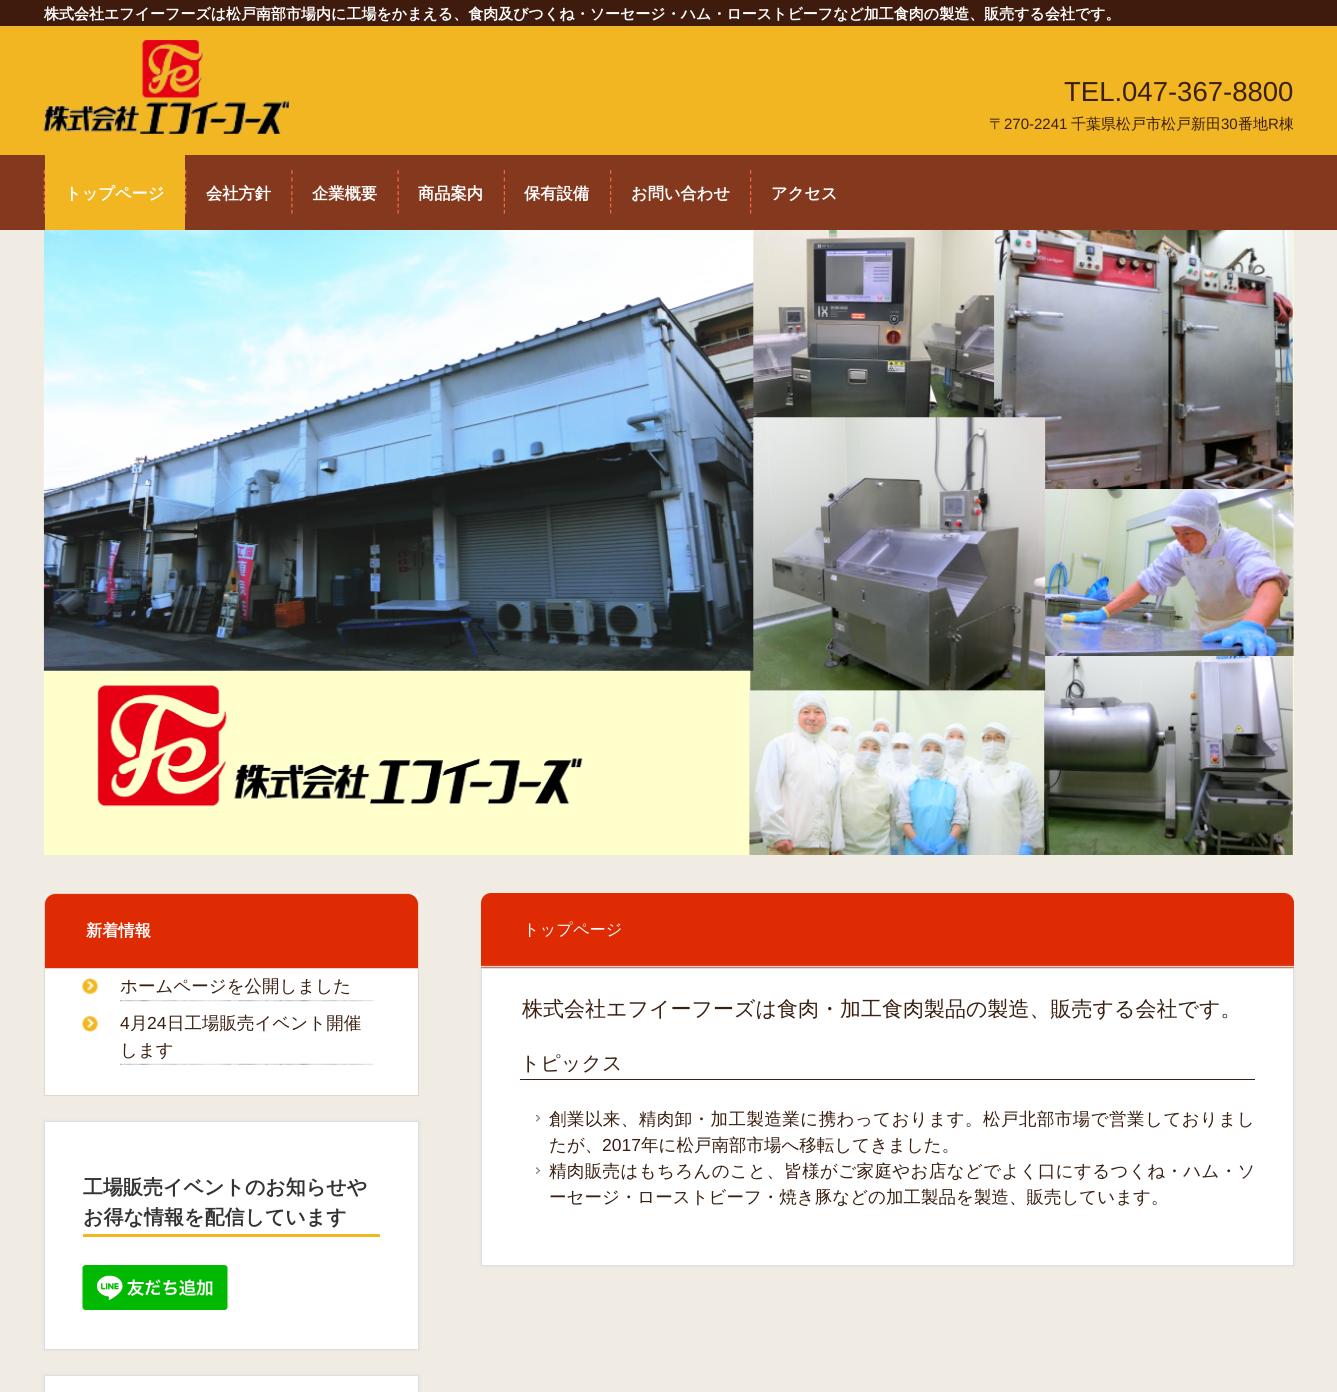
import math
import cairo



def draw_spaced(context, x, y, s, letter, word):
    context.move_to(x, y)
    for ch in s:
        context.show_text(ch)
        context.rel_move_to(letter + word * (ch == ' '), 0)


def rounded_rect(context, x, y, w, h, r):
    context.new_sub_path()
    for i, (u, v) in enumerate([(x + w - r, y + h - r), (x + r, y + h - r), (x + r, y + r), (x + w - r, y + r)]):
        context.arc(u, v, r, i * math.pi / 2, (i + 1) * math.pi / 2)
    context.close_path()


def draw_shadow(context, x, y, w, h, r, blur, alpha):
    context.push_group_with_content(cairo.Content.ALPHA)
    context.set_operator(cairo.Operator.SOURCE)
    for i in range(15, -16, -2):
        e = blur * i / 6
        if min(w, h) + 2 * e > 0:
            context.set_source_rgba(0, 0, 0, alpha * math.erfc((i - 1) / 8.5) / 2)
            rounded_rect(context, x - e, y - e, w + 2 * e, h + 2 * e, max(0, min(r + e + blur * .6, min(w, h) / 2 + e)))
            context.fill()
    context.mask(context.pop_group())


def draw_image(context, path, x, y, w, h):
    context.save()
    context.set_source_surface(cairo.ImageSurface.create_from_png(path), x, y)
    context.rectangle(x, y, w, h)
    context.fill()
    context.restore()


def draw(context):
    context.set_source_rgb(241 / 255, 236 / 255, 227 / 255)
    context.paint()
    context.set_source_rgb(241 / 255, 182 / 255, 33 / 255)
    context.rectangle(0, 26, 1337, 129)
    context.fill()
    context.set_source_rgb(63 / 255, 27 / 255, 14 / 255)
    context.rectangle(0, 0, 1337, 26)
    context.fill()
    draw_image(context, "images/1.png", 43, 40, 246, 94)
    context.set_source_rgb(132 / 255, 57 / 255, 30 / 255)
    context.rectangle(0, 155, 1337, 75)
    context.fill()
    draw_image(context, "images/2.png", 43, 169, 2, 45)
    context.set_source_rgb(241 / 255, 182 / 255, 33 / 255)
    context.rectangle(45, 155, 140, 75)
    context.fill()
    draw_image(context, "images/3.png", 185, 169, 2, 45)
    draw_image(context, "images/4.png", 291, 169, 2, 45)
    draw_image(context, "images/5.png", 397, 169, 2, 45)
    draw_image(context, "images/2.png", 503, 169, 2, 45)
    draw_image(context, "images/3.png", 610, 169, 2, 45)
    draw_image(context, "images/3.png", 750, 169, 2, 45)
    draw_image(context, "images/6.png", 43, 230, 1251, 625)
    context.set_source_rgb(1, 1, 1)
    context.new_path()
    context.move_to(54, 893.5)
    context.line_to(409, 893.5)
    context.curve_to(414, 893.5, 418.5, 898, 418.5, 903)
    context.line_to(418.5, 1095.5)
    context.line_to(44.5, 1095.5)
    context.line_to(44.5, 903)
    context.curve_to(44.5, 898, 49, 893.5, 54, 893.5)
    context.close_path()
    context.fill_preserve()
    context.set_source_rgb(223 / 255, 216 / 255, 202 / 255)
    context.set_line_width(1)
    context.stroke()
    context.set_source_rgb(244 / 255, 244 / 255, 244 / 255)
    context.rectangle(45, 894, 373, 10)
    context.fill()
    context.set_source_rgb(222 / 255, 43 / 255, 3 / 255)
    context.new_path()
    context.move_to(55, 894)
    context.line_to(408, 894)
    context.curve_to(413.5, 894, 418, 898.5, 418, 904)
    context.line_to(418, 969)
    context.line_to(45, 969)
    context.line_to(45, 904)
    context.curve_to(45, 898.5, 49.5, 894, 55, 894)
    context.close_path()
    context.fill()
    context.set_source_rgb(223 / 255, 216 / 255, 202 / 255)
    context.rectangle(45, 968, 373, 1)
    context.fill()
    draw_image(context, "images/7.png", 82, 978, 16, 16)
    draw_image(context, "images/8.png", 120, 1000, 254, 2)
    draw_image(context, "images/9.png", 82, 1016, 16, 16)
    draw_image(context, "images/10.png", 120, 1063, 254, 2)
    context.set_source_rgb(223 / 255, 223 / 255, 223 / 255)
    draw_shadow(context, 44, 1121, 375, 229, 0, 2, 1)
    context.set_source_rgb(1, 1, 1)
    context.rectangle(44.5, 1121.5, 374, 228)
    context.fill_preserve()
    context.set_source_rgb(223 / 255, 223 / 255, 223 / 255)
    context.stroke()
    context.set_source_rgb(241 / 255, 182 / 255, 33 / 255)
    context.rectangle(83, 1234, 297, 3)
    context.fill()
    draw_image(context, "images/11.png", 82, 1265, 146, 45)
    context.set_source_rgb(223 / 255, 223 / 255, 223 / 255)
    draw_shadow(context, 44, 1375, 375, 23, 0, 2, 1)
    context.set_source_rgb(1, 1, 1)
    context.rectangle(44.5, 1375.5, 374, 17)
    context.fill_preserve()
    context.set_source_rgb(223 / 255, 223 / 255, 223 / 255)
    context.stroke()
    context.set_source_rgb(222 / 255, 43 / 255, 3 / 255)
    context.new_path()
    context.move_to(491, 893)
    context.line_to(1284, 893)
    context.curve_to(1289.5, 893, 1294, 897.5, 1294, 903)
    context.line_to(1294, 968)
    context.line_to(481, 968)
    context.line_to(481, 903)
    context.curve_to(481, 897.5, 485.5, 893, 491, 893)
    context.close_path()
    context.fill()
    context.set_source_rgb(223 / 255, 216 / 255, 202 / 255)
    context.rectangle(481, 966, 813, 1)
    context.fill()
    context.set_source_rgb(223 / 255, 223 / 255, 223 / 255)
    draw_shadow(context, 481, 968, 813, 298, 0, 2, 1)
    context.set_source_rgb(1, 1, 1)
    context.rectangle(481.5, 968.5, 812, 297)
    context.fill_preserve()
    context.set_source_rgb(223 / 255, 223 / 255, 223 / 255)
    context.stroke()
    context.set_source_rgb(63 / 255, 28 / 255, 22 / 255)
    context.rectangle(520, 1079, 735, 1)
    context.fill()
    draw_image(context, "images/12.png", 536, 1115, 4, 7)
    draw_image(context, "images/13.png", 536, 1167, 4, 7)
    context.select_font_face("WenQuanYi Zen Hei", cairo.FontSlant.NORMAL, cairo.FontWeight.BOLD)
    context.set_font_size(15)
    context.set_source_rgb(1, 1, 1)
    context.move_to(44, 19)
    context.show_text("株式会社エフイーフーズは松戸南部市場内に工場をかまえる、食肉及びつくね・ソーセージ・ハム・ローストビーフなど加工食肉の製造、販売する会社です。")
    context.select_font_face("Liberation Sans")
    context.set_font_size(27.5)
    context.set_source_rgb(58 / 255, 32 / 255, 17 / 255)
    context.move_to(1064, 101)
    context.show_text("TEL.047-367-8800")
    context.select_font_face("WenQuanYi Zen Hei Medium")
    context.set_font_size(15)
    context.move_to(989, 129)
    context.show_text("〒")
    context.select_font_face("Liberation Sans")
    context.move_to(1004, 129)
    context.show_text("270-2241")
    context.select_font_face("WenQuanYi Zen Hei Medium")
    context.move_to(1071, 129)
    context.show_text("千葉県松戸市松戸新田")
    context.select_font_face("Liberation Sans")
    context.move_to(1221, 129)
    context.show_text("30")
    context.select_font_face("WenQuanYi Zen Hei Medium")
    context.move_to(1238, 129)
    context.show_text("番地")
    context.select_font_face("Liberation Sans")
    context.move_to(1268, 129)
    context.show_text("R")
    context.select_font_face("WenQuanYi Zen Hei Medium")
    context.move_to(1279, 129)
    context.show_text("棟")
    context.select_font_face("WenQuanYi Zen Hei", cairo.FontSlant.NORMAL, cairo.FontWeight.BOLD)
    context.set_font_size(16.25)
    context.set_source_rgb(1, 1, 1)
    context.move_to(65, 199)
    context.show_text("トップページ")
    context.move_to(206, 199)
    context.show_text("会社方針")
    context.move_to(312, 199)
    context.show_text("企業概要")
    context.move_to(418, 199)
    context.show_text("商品案内")
    context.move_to(524, 199)
    context.show_text("保有設備")
    context.move_to(631, 199)
    context.show_text("お問い合わせ")
    context.move_to(771, 199)
    context.show_text("アクセス")
    context.move_to(86, 936)
    context.show_text("新着情報")
    context.select_font_face("WenQuanYi Zen Hei Medium")
    context.set_font_size(17.5)
    context.set_source_rgb(58 / 255, 32 / 255, 17 / 255)
    context.move_to(120, 992)
    context.show_text("ホームページを公開しました")
    context.select_font_face("Liberation Sans")
    context.move_to(120, 1029)
    context.show_text("4")
    context.select_font_face("WenQuanYi Zen Hei Medium")
    context.move_to(130, 1029)
    context.show_text("月")
    context.select_font_face("Liberation Sans")
    context.move_to(147, 1029)
    context.show_text("24")
    context.select_font_face("WenQuanYi Zen Hei Medium")
    context.move_to(167, 1029)
    context.show_text("日工場販売イベント開催")
    context.move_to(120, 1056)
    context.show_text("します")
    context.select_font_face("WenQuanYi Zen Hei", cairo.FontSlant.NORMAL, cairo.FontWeight.BOLD)
    context.set_font_size(20)
    context.set_source_rgb(51 / 255, 51 / 255, 51 / 255)
    context.move_to(83, 1194)
    context.show_text("工場販売イベントのお知らせや")
    context.move_to(83, 1224)
    context.show_text("お得な情報を配信しています")
    context.select_font_face("WenQuanYi Zen Hei Medium")
    context.set_font_size(16.25)
    context.set_source_rgb(1, 1, 1)
    context.move_to(523, 935)
    context.show_text("トップページ")
    context.set_font_size(21)
    context.set_source_rgb(58 / 255, 32 / 255, 17 / 255)
    context.move_to(522, 1016)
    context.show_text("株式会社エフイーフーズは食肉・加工食肉製品の製造、販売する会社です。")
    context.set_font_size(20)
    context.move_to(520, 1070)
    context.show_text("トピックス")
    context.set_font_size(17.5)
    draw_spaced(context, 549, 1125, "創業以来、精肉卸・加工製造業に携わっております。松戸北部市場で営業しておりまし", 0.45, 0)
    context.move_to(549, 1151)
    context.show_text("たが、")
    context.select_font_face("Liberation Sans")
    context.move_to(602, 1151)
    context.show_text("2017")
    context.select_font_face("WenQuanYi Zen Hei Medium")
    context.move_to(641, 1151)
    context.show_text("年に松戸南部市場へ移転してきました。")
    draw_spaced(context, 549, 1177, "精肉販売はもちろんのこと、皆様がご家庭やお店などでよく口にするつくね・ハム・ソ", 0.35, 0)
    context.move_to(549, 1203)
    context.show_text("ーセージ・ローストビーフ・焼き豚などの加工製品を製造、販売しています。")


surface = cairo.ImageSurface(cairo.Format.RGB24, 1337, 1392)
context = cairo.Context(surface)
options = cairo.FontOptions()
options.set_hint_metrics(cairo.HintMetrics.OFF)
options.set_hint_style(cairo.HintStyle.NONE)
context.set_font_options(options)
context.set_miter_limit(4)
draw(context)
surface.write_to_png("out.png")
